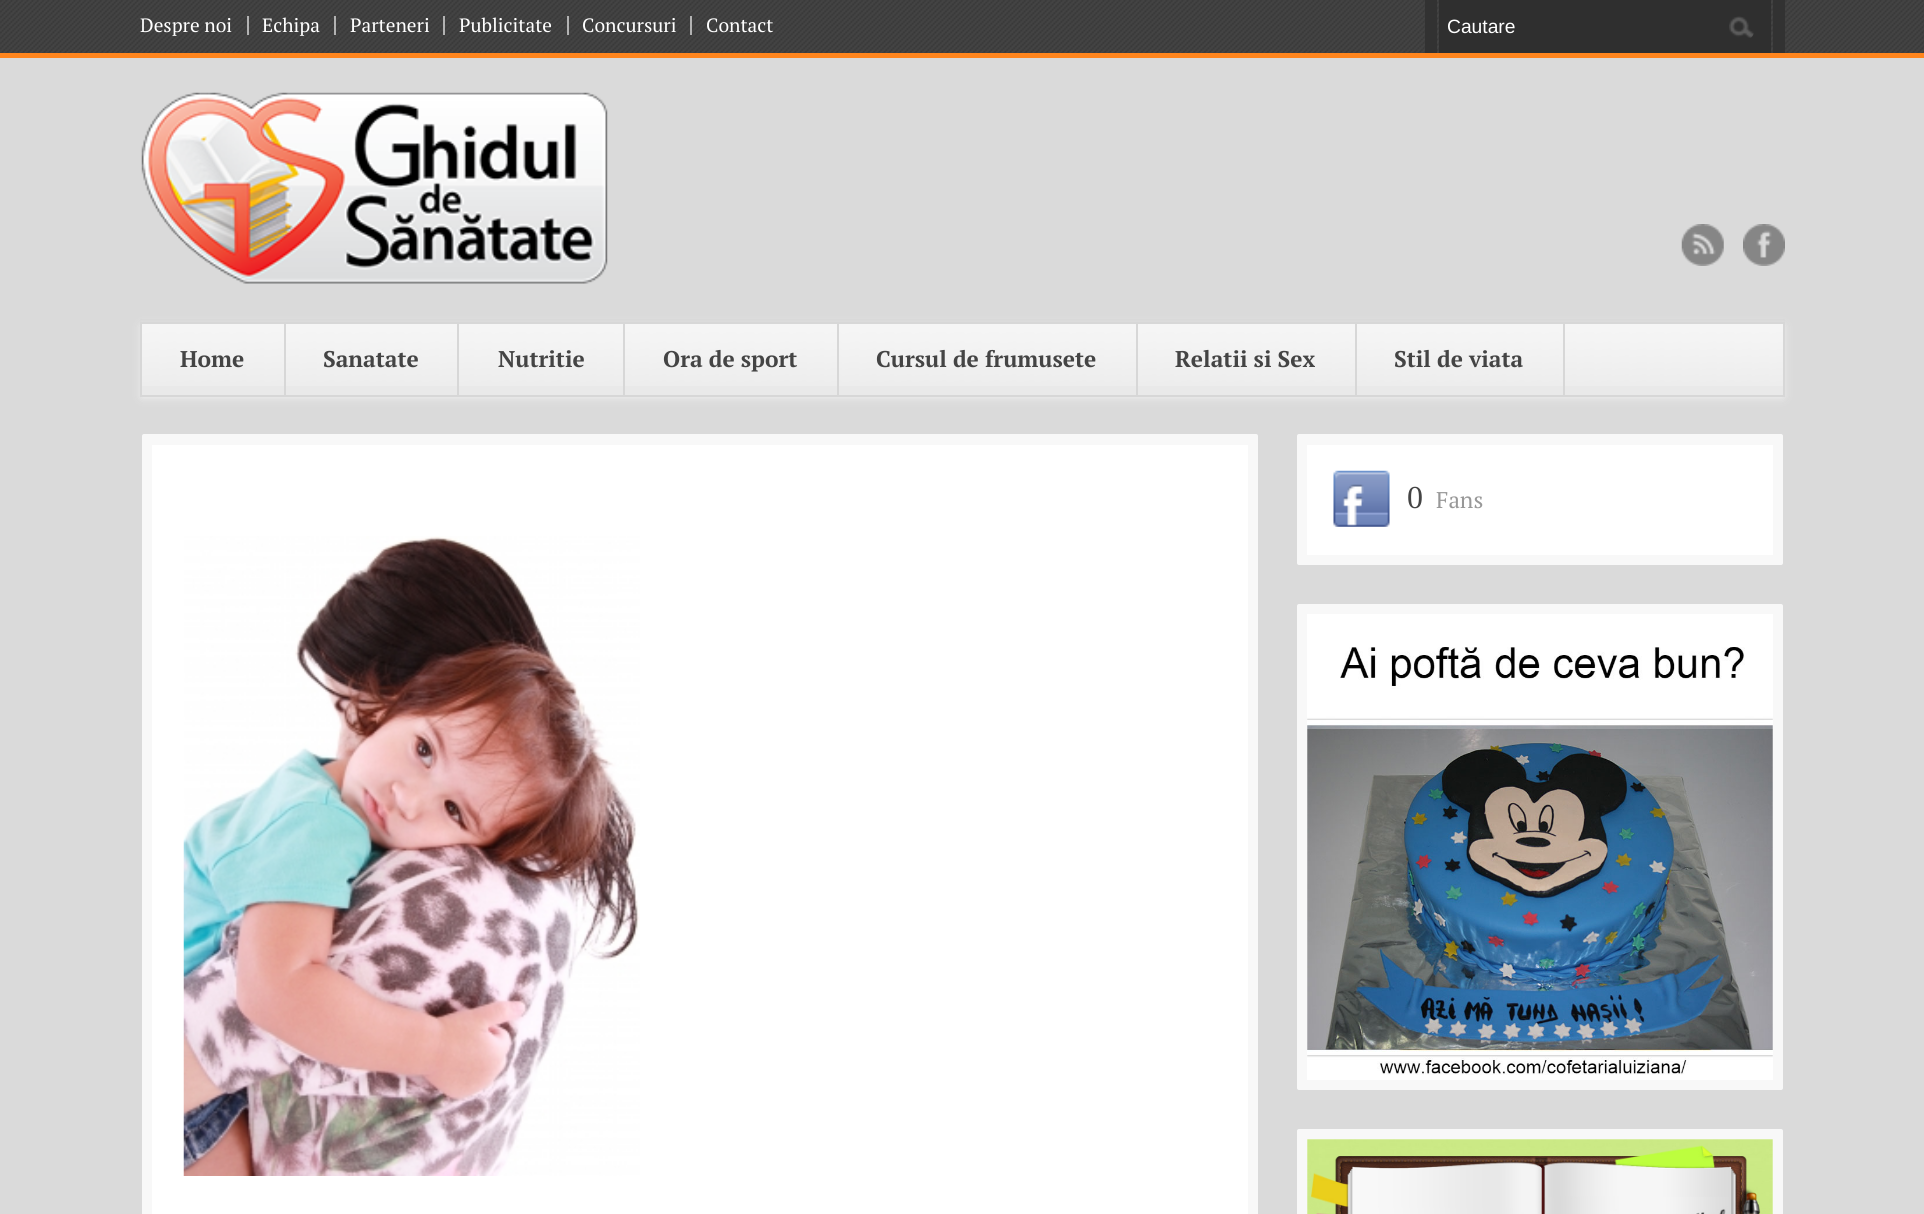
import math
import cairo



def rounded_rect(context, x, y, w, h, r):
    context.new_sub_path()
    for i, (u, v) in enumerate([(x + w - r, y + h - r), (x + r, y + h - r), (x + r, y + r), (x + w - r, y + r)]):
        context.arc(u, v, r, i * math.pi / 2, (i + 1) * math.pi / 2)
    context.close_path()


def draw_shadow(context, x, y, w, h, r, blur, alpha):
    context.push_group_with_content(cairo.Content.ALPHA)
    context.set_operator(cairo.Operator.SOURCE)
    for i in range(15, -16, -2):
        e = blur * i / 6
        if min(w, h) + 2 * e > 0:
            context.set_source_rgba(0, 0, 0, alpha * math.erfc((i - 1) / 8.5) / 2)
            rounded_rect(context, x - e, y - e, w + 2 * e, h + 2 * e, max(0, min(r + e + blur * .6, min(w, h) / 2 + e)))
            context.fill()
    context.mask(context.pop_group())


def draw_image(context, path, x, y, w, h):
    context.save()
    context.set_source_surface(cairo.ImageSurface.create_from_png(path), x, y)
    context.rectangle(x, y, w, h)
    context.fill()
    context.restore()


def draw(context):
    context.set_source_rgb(218 / 255, 218 / 255, 218 / 255)
    context.paint()
    context.set_source_rgb(68 / 255, 68 / 255, 68 / 255)
    context.rectangle(0, 0, 1924, 53)
    context.fill()
    draw_image(context, "images/1.png", 0, 0, 1924, 53)
    context.set_source_rgb(178 / 255, 178 / 255, 178 / 255)
    context.rectangle(247, 16, 2, 19)
    context.fill()
    context.rectangle(334, 16, 2, 19)
    context.fill()
    context.rectangle(443, 16, 2, 19)
    context.fill()
    context.rectangle(567, 16, 2, 19)
    context.fill()
    context.rectangle(690, 16, 2, 19)
    context.fill()
    context.set_source_rgb(50 / 255, 50 / 255, 50 / 255)
    context.rectangle(1425, 0, 12, 53)
    context.fill()
    context.set_source_rgb(47 / 255, 47 / 255, 47 / 255)
    context.rectangle(1439, 0, 332, 53)
    context.fill()
    draw_image(context, "images/2.png", 1729, 16, 25, 22)
    context.set_source_rgb(50 / 255, 50 / 255, 50 / 255)
    context.rectangle(1773, 0, 12, 53)
    context.fill()
    context.set_source_rgb(1, 133 / 255, 29 / 255)
    context.rectangle(0, 53, 1924, 5)
    context.fill()
    draw_image(context, "images/3.png", 141, 92, 467, 192)
    draw_image(context, "images/4.png", 1681, 224, 43, 42)
    draw_image(context, "images/5.png", 1743, 224, 42, 42)
    context.set_source_rgb(215 / 255, 215 / 255, 215 / 255)
    context.rectangle(140, 319, 1645, 3)
    context.fill()
    context.set_source_rgb(245 / 255, 245 / 255, 245 / 255)
    draw_shadow(context, 142, 326, 1641, 71, 0, 4.5, 1)
    context.set_source_rgb(233 / 255, 233 / 255, 233 / 255)
    context.rectangle(142, 324, 1641, 71)
    context.fill()
    draw_image(context, "images/6.png", 142, 324, 1641, 62)
    context.rectangle(141, 323, 1643, 73)
    context.set_source_rgb(215 / 255, 215 / 255, 215 / 255)
    context.stroke()
    context.rectangle(284, 324, 2, 72)
    context.fill()
    context.rectangle(457, 324, 2, 72)
    context.fill()
    context.rectangle(623, 324, 2, 72)
    context.fill()
    context.rectangle(837, 324, 2, 72)
    context.fill()
    context.rectangle(1136, 324, 2, 72)
    context.fill()
    context.rectangle(1355, 324, 2, 72)
    context.fill()
    context.rectangle(1563, 324, 2, 72)
    context.fill()
    context.set_source_rgb(248 / 255, 248 / 255, 248 / 255)
    rounded_rect(context, 141, 433, 1118, 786, 3)
    context.fill_preserve()
    context.set_source_rgb(218 / 255, 218 / 255, 218 / 255)
    context.stroke()
    context.set_source_rgb(1, 1, 1)
    context.rectangle(152, 445, 1096, 769)
    context.fill()
    draw_image(context, "images/7.png", 183, 536, 457, 640)
    context.set_source_rgb(248 / 255, 248 / 255, 248 / 255)
    rounded_rect(context, 1296, 433, 488, 133, 3)
    context.fill_preserve()
    context.set_source_rgb(218 / 255, 218 / 255, 218 / 255)
    context.stroke()
    context.set_source_rgb(1, 1, 1)
    context.rectangle(1307, 445, 466, 110)
    context.fill()
    draw_image(context, "images/8.png", 1333, 470, 57, 57)
    context.set_source_rgb(248 / 255, 248 / 255, 248 / 255)
    rounded_rect(context, 1296, 603, 488, 488, 3)
    context.fill_preserve()
    context.set_source_rgb(218 / 255, 218 / 255, 218 / 255)
    context.stroke()
    context.set_source_rgb(1, 1, 1)
    context.rectangle(1307, 614, 466, 466)
    context.fill()
    draw_image(context, "images/9.png", 1307, 647, 466, 428)
    context.set_source_rgb(248 / 255, 248 / 255, 248 / 255)
    rounded_rect(context, 1296, 1128, 488, 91, 3)
    context.fill_preserve()
    context.set_source_rgb(218 / 255, 218 / 255, 218 / 255)
    context.stroke()
    context.set_source_rgb(1, 1, 1)
    context.rectangle(1307, 1139, 466, 75)
    context.fill()
    draw_image(context, "images/10.png", 1307, 1139, 466, 75)
    context.select_font_face("PT Serif")
    context.set_font_size(19.25)
    context.move_to(140, 32)
    context.show_text("Despre noi")
    context.move_to(262, 32)
    context.show_text("Echipa")
    context.move_to(350, 32)
    context.show_text("Parteneri")
    context.move_to(459, 32)
    context.show_text("Publicitate")
    context.move_to(582, 32)
    context.show_text("Concursuri")
    context.move_to(706, 32)
    context.show_text("Contact")
    context.select_font_face("Liberation Sans")
    context.move_to(1447, 33)
    context.show_text("Cautare")
    context.select_font_face("PT Serif", cairo.FontSlant.NORMAL, cairo.FontWeight.BOLD)
    context.set_font_size(22.75)
    context.set_source_rgb(68 / 255, 68 / 255, 68 / 255)
    context.move_to(180, 367)
    context.show_text("Home")
    context.move_to(323, 367)
    context.show_text("Sanatate")
    context.move_to(498, 367)
    context.show_text("Nutritie")
    context.move_to(663, 367)
    context.show_text("Ora de sport")
    context.move_to(876, 367)
    context.show_text("Cursul de frumusete")
    context.move_to(1175, 367)
    context.show_text("Relatii si Sex")
    context.move_to(1394, 367)
    context.show_text("Stil de viata")
    context.select_font_face("Liberation Serif")
    context.set_font_size(32)
    context.move_to(1407, 508)
    context.show_text("0")
    context.select_font_face("PT Serif")
    context.set_font_size(22.75)
    context.set_source_rgb(152 / 255, 152 / 255, 152 / 255)
    context.move_to(1436, 508)
    context.show_text("Fans")


surface = cairo.ImageSurface(cairo.Format.RGB24, 1924, 1214)
context = cairo.Context(surface)
options = cairo.FontOptions()
options.set_hint_metrics(cairo.HintMetrics.OFF)
options.set_hint_style(cairo.HintStyle.NONE)
context.set_font_options(options)
context.set_miter_limit(4)
draw(context)
surface.write_to_png("out.png")
